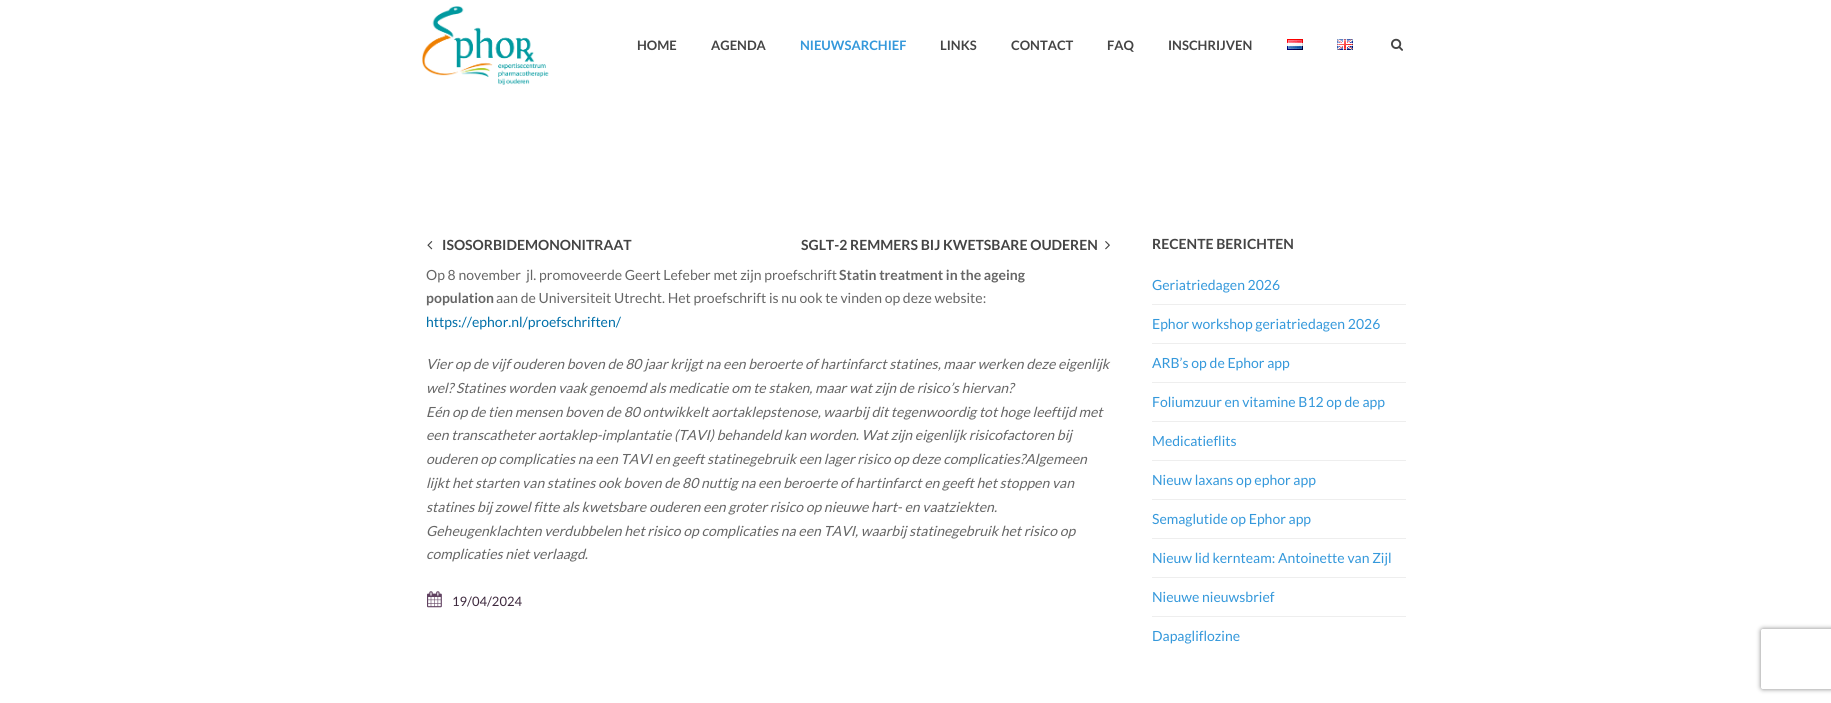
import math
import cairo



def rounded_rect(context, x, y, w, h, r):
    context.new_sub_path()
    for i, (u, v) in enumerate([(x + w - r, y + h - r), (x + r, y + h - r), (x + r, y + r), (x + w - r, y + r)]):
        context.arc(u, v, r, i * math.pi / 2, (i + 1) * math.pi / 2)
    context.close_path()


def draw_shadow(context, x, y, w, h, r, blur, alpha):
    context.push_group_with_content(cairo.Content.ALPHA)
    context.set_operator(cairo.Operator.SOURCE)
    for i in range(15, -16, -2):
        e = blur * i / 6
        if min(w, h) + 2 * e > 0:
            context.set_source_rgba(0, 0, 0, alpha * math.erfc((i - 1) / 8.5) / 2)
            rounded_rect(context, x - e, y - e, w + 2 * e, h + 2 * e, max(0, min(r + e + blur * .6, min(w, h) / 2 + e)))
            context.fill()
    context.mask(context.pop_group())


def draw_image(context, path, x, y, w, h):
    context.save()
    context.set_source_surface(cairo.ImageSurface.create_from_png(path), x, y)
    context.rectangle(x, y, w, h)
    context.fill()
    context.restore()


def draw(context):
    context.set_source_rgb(1, 1, 1)
    context.paint()
    draw_image(context, "images/1.png", 422, 6, 127, 79)
    draw_image(context, "images/2.png", 1287, 39, 16, 11)
    draw_image(context, "images/3.png", 1337, 39, 16, 11)
    draw_image(context, "images/4.png", 1391, 38, 12, 13)
    draw_image(context, "images/5.png", 427, 241, 6, 9)
    draw_image(context, "images/6.png", 1105, 241, 5, 9)
    draw_image(context, "images/7.png", 427, 591, 15, 17)
    context.set_source_rgb(238 / 255, 238 / 255, 238 / 255)
    context.rectangle(1152, 304, 254, 1)
    context.fill()
    context.rectangle(1152, 343, 254, 1)
    context.fill()
    context.rectangle(1152, 382, 254, 1)
    context.fill()
    context.rectangle(1152, 421, 254, 1)
    context.fill()
    context.rectangle(1152, 460, 254, 1)
    context.fill()
    context.rectangle(1152, 499, 254, 1)
    context.fill()
    context.rectangle(1152, 538, 254, 1)
    context.fill()
    context.rectangle(1152, 577, 254, 1)
    context.fill()
    context.rectangle(1152, 616, 254, 1)
    context.fill()
    context.save()
    context.set_fill_rule(cairo.FillRule.EVEN_ODD)
    context.new_path()
    context.move_to(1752, 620)
    context.line_to(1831, 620)
    context.line_to(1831, 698)
    context.line_to(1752, 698)
    context.close_path()
    context.move_to(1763, 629)
    context.line_to(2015, 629)
    context.curve_to(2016, 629, 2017, 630, 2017, 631)
    context.line_to(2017, 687)
    context.curve_to(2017, 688, 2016, 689, 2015, 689)
    context.line_to(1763, 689)
    context.curve_to(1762, 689, 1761, 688, 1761, 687)
    context.line_to(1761, 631)
    context.curve_to(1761, 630, 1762, 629, 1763, 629)
    context.close_path()
    context.clip()
    context.set_source_rgb(128 / 255, 128 / 255, 128 / 255)
    draw_shadow(context, 1761, 629, 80, 60, 2, 2.5, 1)
    context.restore()
    context.select_font_face("Lato", cairo.FontSlant.NORMAL, cairo.FontWeight.BOLD)
    context.set_font_size(13)
    context.set_source_rgb(68 / 255, 68 / 255, 68 / 255)
    context.move_to(637, 50)
    context.show_text("HOME")
    context.move_to(711, 50)
    context.show_text("AGENDA")
    context.set_source_rgb(52 / 255, 152 / 255, 219 / 255)
    context.move_to(800, 50)
    context.show_text("NIEUWSARCHIEF")
    context.set_source_rgb(68 / 255, 68 / 255, 68 / 255)
    context.move_to(940, 50)
    context.show_text("LINKS")
    context.move_to(1011, 50)
    context.show_text("CONTACT")
    context.move_to(1107, 50)
    context.show_text("FAQ")
    context.move_to(1168, 50)
    context.show_text("INSCHRIJVEN")
    context.set_font_size(14)
    context.move_to(442, 250)
    context.show_text("ISOSORBIDEMONONITRAAT")
    context.move_to(801, 250)
    context.show_text("SGLT-2 REMMERS BIJ KWETSBARE OUDEREN")
    context.select_font_face("Lato")
    context.set_source_rgb(102 / 255, 102 / 255, 102 / 255)
    context.move_to(426, 280)
    context.show_text("Op 8 november  jl. promoveerde Geert Lefeber met zijn proefschrift")
    context.select_font_face("Lato", cairo.FontSlant.NORMAL, cairo.FontWeight.BOLD)
    context.move_to(839, 280)
    context.show_text("Statin treatment in the ageing")
    context.move_to(426, 303)
    context.show_text("population")
    context.select_font_face("Lato")
    context.move_to(496, 303)
    context.show_text("aan de Universiteit Utrecht. Het proefschrift is nu ook te vinden op deze website:")
    context.set_source_rgb(0, 111 / 255, 169 / 255)
    context.move_to(426, 327)
    context.show_text("https://ephor.nl/proefschriften/")
    context.select_font_face("Lato", cairo.FontSlant.ITALIC)
    context.set_source_rgb(102 / 255, 102 / 255, 102 / 255)
    context.move_to(426, 369)
    context.show_text("Vier op de vijf ouderen boven de 80 jaar krijgt na een beroerte of hartinfarct statines, maar werken deze eigenlijk")
    context.move_to(426, 393)
    context.show_text("wel? Statines worden vaak genoemd als medicatie om te staken, maar wat zijn de risico’s hiervan?")
    context.move_to(426, 417)
    context.show_text("Eén op de tien mensen boven de 80 ontwikkelt aortaklepstenose, waarbij dit tegenwoordig tot hoge leeftijd met")
    context.move_to(426, 440)
    context.show_text("een transcatheter aortaklep-implantatie (TAVI) behandeld kan worden. Wat zijn eigenlijk risicofactoren bij")
    context.move_to(426, 464)
    context.show_text("ouderen op complicaties na een TAVI en geeft statinegebruik een lager risico op deze complicaties?Algemeen")
    context.move_to(426, 488)
    context.show_text("lijkt het starten van statines ook boven de 80 nuttig na een beroerte of hartinfarct en geeft het stoppen van")
    context.move_to(426, 512)
    context.show_text("statines bij zowel fitte als kwetsbare ouderen een groter risico op nieuwe hart- en vaatziekten.")
    context.move_to(426, 536)
    context.show_text("Geheugenklachten verdubbelen het risico op complicaties na een TAVI, waarbij statinegebruik het risico op")
    context.move_to(426, 559)
    context.show_text("complicaties niet verlaagd.")
    context.select_font_face("Lato")
    context.set_font_size(13)
    context.set_source_rgb(62 / 255, 41 / 255, 62 / 255)
    context.move_to(452, 606)
    context.show_text("19/04/2024")
    context.select_font_face("Lato", cairo.FontSlant.NORMAL, cairo.FontWeight.BOLD)
    context.set_font_size(14)
    context.set_source_rgb(68 / 255, 68 / 255, 68 / 255)
    context.move_to(1152, 249)
    context.show_text("RECENTE BERICHTEN")
    context.select_font_face("Lato")
    context.set_source_rgb(52 / 255, 152 / 255, 219 / 255)
    context.move_to(1152, 290)
    context.show_text("Geriatriedagen 2026")
    context.move_to(1152, 329)
    context.show_text("Ephor workshop geriatriedagen 2026")
    context.move_to(1152, 368)
    context.show_text("ARB’s op de Ephor app")
    context.move_to(1152, 407)
    context.show_text("Foliumzuur en vitamine B12 op de app")
    context.move_to(1152, 446)
    context.show_text("Medicatieflits")
    context.move_to(1152, 485)
    context.show_text("Nieuw laxans op ephor app")
    context.move_to(1152, 524)
    context.show_text("Semaglutide op Ephor app")
    context.move_to(1152, 563)
    context.show_text("Nieuw lid kernteam: Antoinette van Zijl")
    context.move_to(1152, 602)
    context.show_text("Nieuwe nieuwsbrief")
    context.move_to(1152, 641)
    context.show_text("Dapagliflozine")


surface = cairo.ImageSurface(cairo.Format.RGB24, 1831, 703)
context = cairo.Context(surface)
options = cairo.FontOptions()
options.set_hint_metrics(cairo.HintMetrics.OFF)
options.set_hint_style(cairo.HintStyle.NONE)
context.set_font_options(options)
context.set_miter_limit(4)
draw(context)
surface.write_to_png("out.png")
